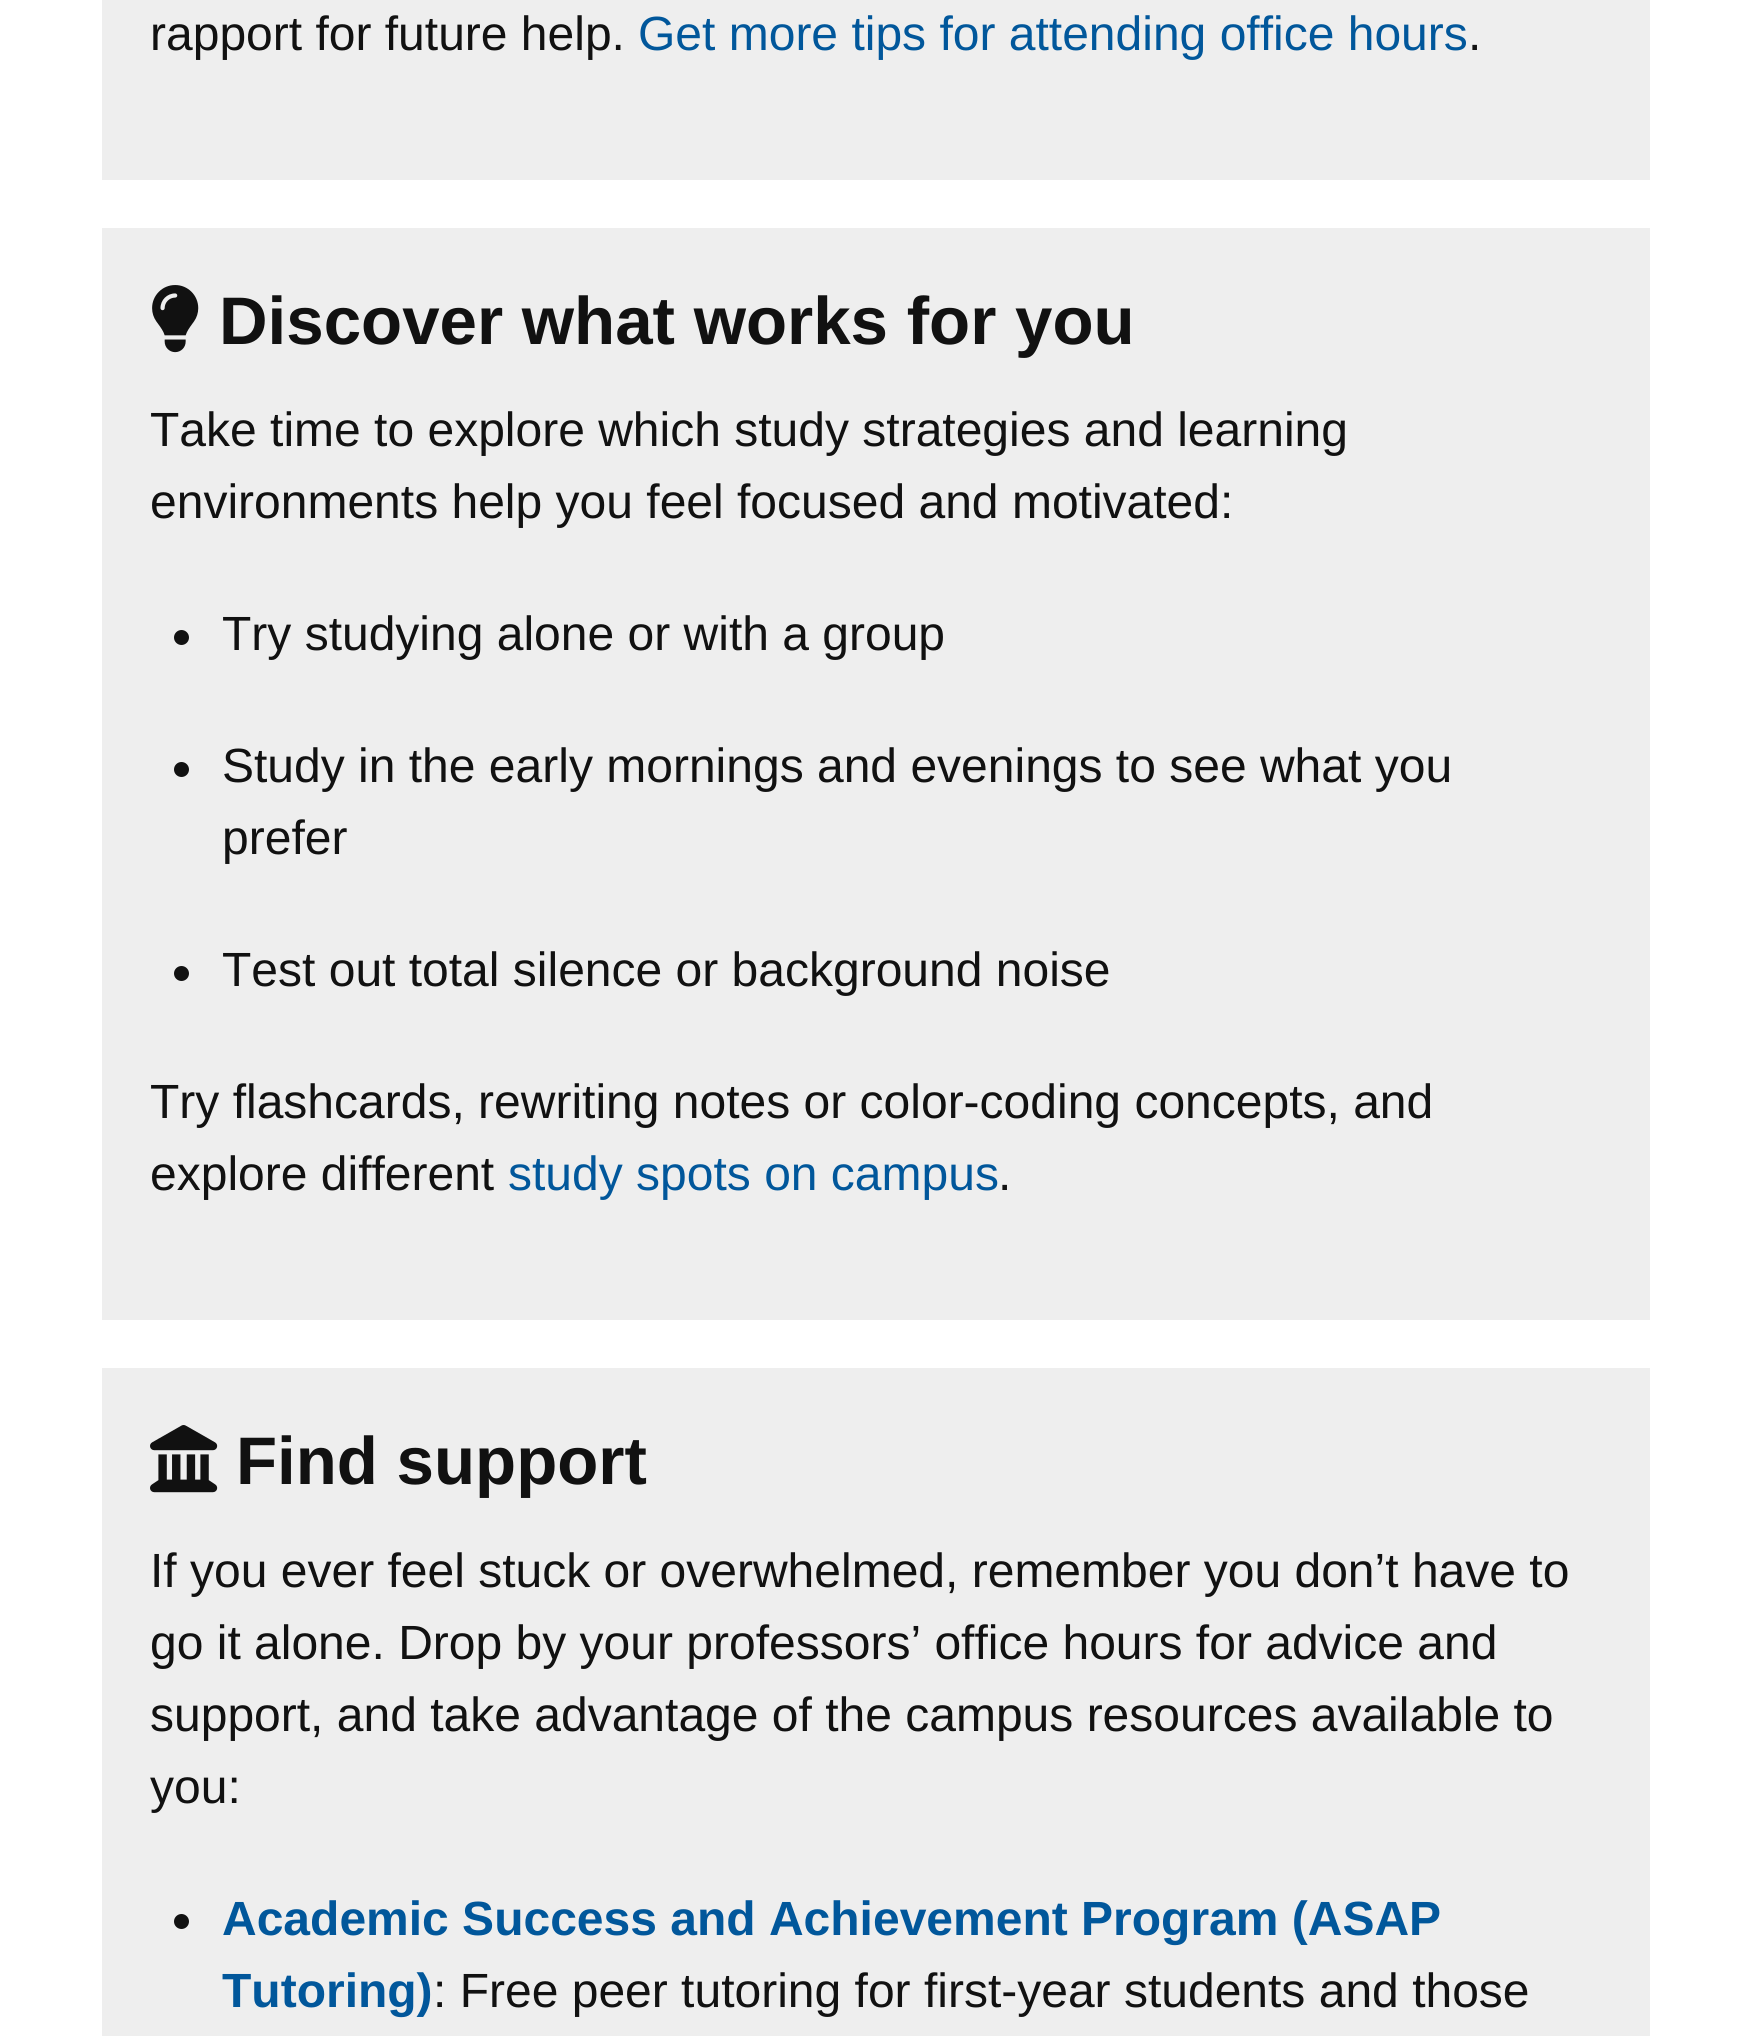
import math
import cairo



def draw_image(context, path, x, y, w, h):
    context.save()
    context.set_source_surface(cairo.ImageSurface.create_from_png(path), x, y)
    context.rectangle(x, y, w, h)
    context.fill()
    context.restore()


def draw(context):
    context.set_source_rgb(1, 1, 1)
    context.paint()
    context.set_source_rgb(238 / 255, 238 / 255, 238 / 255)
    context.rectangle(102, 0, 1548, 180)
    context.fill()
    context.rectangle(102, 228, 1548, 1092)
    context.fill()
    draw_image(context, "images/1.png", 152, 285, 47, 68)
    context.set_source_rgb(17 / 255, 17 / 255, 17 / 255)
    context.arc(181.5, 637.5, 7.5, 0, 2 * math.pi)
    context.fill()
    context.arc(181.5, 769.5, 7.5, 0, 2 * math.pi)
    context.fill()
    context.arc(181.5, 973.5, 7.5, 0, 2 * math.pi)
    context.fill()
    context.set_source_rgb(238 / 255, 238 / 255, 238 / 255)
    context.rectangle(102, 1368, 1548, 668)
    context.fill()
    draw_image(context, "images/2.png", 150, 1425, 68, 68)
    context.set_source_rgb(17 / 255, 17 / 255, 17 / 255)
    context.arc(181.5, 1921.5, 7.5, 0, 2 * math.pi)
    context.fill()
    context.select_font_face("Liberation Sans")
    context.set_font_size(48)
    context.move_to(150, 50)
    context.show_text("rapport for future help.")
    context.set_source_rgb(1 / 255, 87 / 255, 155 / 255)
    context.move_to(638, 50)
    context.show_text("Get more tips for attending office hours")
    context.set_source_rgb(17 / 255, 17 / 255, 17 / 255)
    context.move_to(1468, 50)
    context.show_text(".")
    context.select_font_face("Liberation Sans", cairo.FontSlant.NORMAL, cairo.FontWeight.BOLD)
    context.set_font_size(67.25)
    context.move_to(219, 344)
    context.show_text("Discover what works for you")
    context.select_font_face("Liberation Sans")
    context.set_font_size(48)
    context.move_to(150, 446)
    context.show_text("Take time to explore which study strategies and learning")
    context.move_to(150, 518)
    context.show_text("environments help you feel focused and motivated:")
    context.move_to(222, 650)
    context.show_text("Try studying alone or with a group")
    context.move_to(222, 782)
    context.show_text("Study in the early mornings and evenings to see what you")
    context.move_to(222, 854)
    context.show_text("prefer")
    context.move_to(222, 986)
    context.show_text("Test out total silence or background noise")
    context.move_to(150, 1118)
    context.show_text("Try flashcards, rewriting notes or color-coding concepts, and")
    context.move_to(150, 1190)
    context.show_text("explore different")
    context.set_source_rgb(1 / 255, 87 / 255, 155 / 255)
    context.move_to(508, 1190)
    context.show_text("study spots on campus")
    context.set_source_rgb(17 / 255, 17 / 255, 17 / 255)
    context.move_to(998, 1190)
    context.show_text(".")
    context.select_font_face("Liberation Sans", cairo.FontSlant.NORMAL, cairo.FontWeight.BOLD)
    context.set_font_size(67.25)
    context.move_to(236, 1484)
    context.show_text("Find support")
    context.select_font_face("Liberation Sans")
    context.set_font_size(48)
    context.move_to(150, 1587)
    context.show_text("If you ever feel stuck or overwhelmed, remember you don’t have to")
    context.move_to(150, 1659)
    context.show_text("go it alone. Drop by your professors’ office hours for advice and")
    context.move_to(150, 1731)
    context.show_text("support, and take advantage of the campus resources available to")
    context.move_to(150, 1803)
    context.show_text("you:")
    context.select_font_face("Liberation Sans", cairo.FontSlant.NORMAL, cairo.FontWeight.BOLD)
    context.set_source_rgb(1 / 255, 87 / 255, 155 / 255)
    context.move_to(222, 1935)
    context.show_text("Academic Success and Achievement Program (ASAP")
    context.move_to(222, 2007)
    context.show_text("Tutoring)")
    context.select_font_face("Liberation Sans")
    context.set_source_rgb(17 / 255, 17 / 255, 17 / 255)
    context.move_to(433, 2007)
    context.show_text(": Free peer tutoring for first-year students and those")


surface = cairo.ImageSurface(cairo.Format.RGB24, 1752, 2036)
context = cairo.Context(surface)
options = cairo.FontOptions()
options.set_hint_metrics(cairo.HintMetrics.OFF)
options.set_hint_style(cairo.HintStyle.NONE)
context.set_font_options(options)
context.set_miter_limit(4)
draw(context)
surface.write_to_png("out.png")
